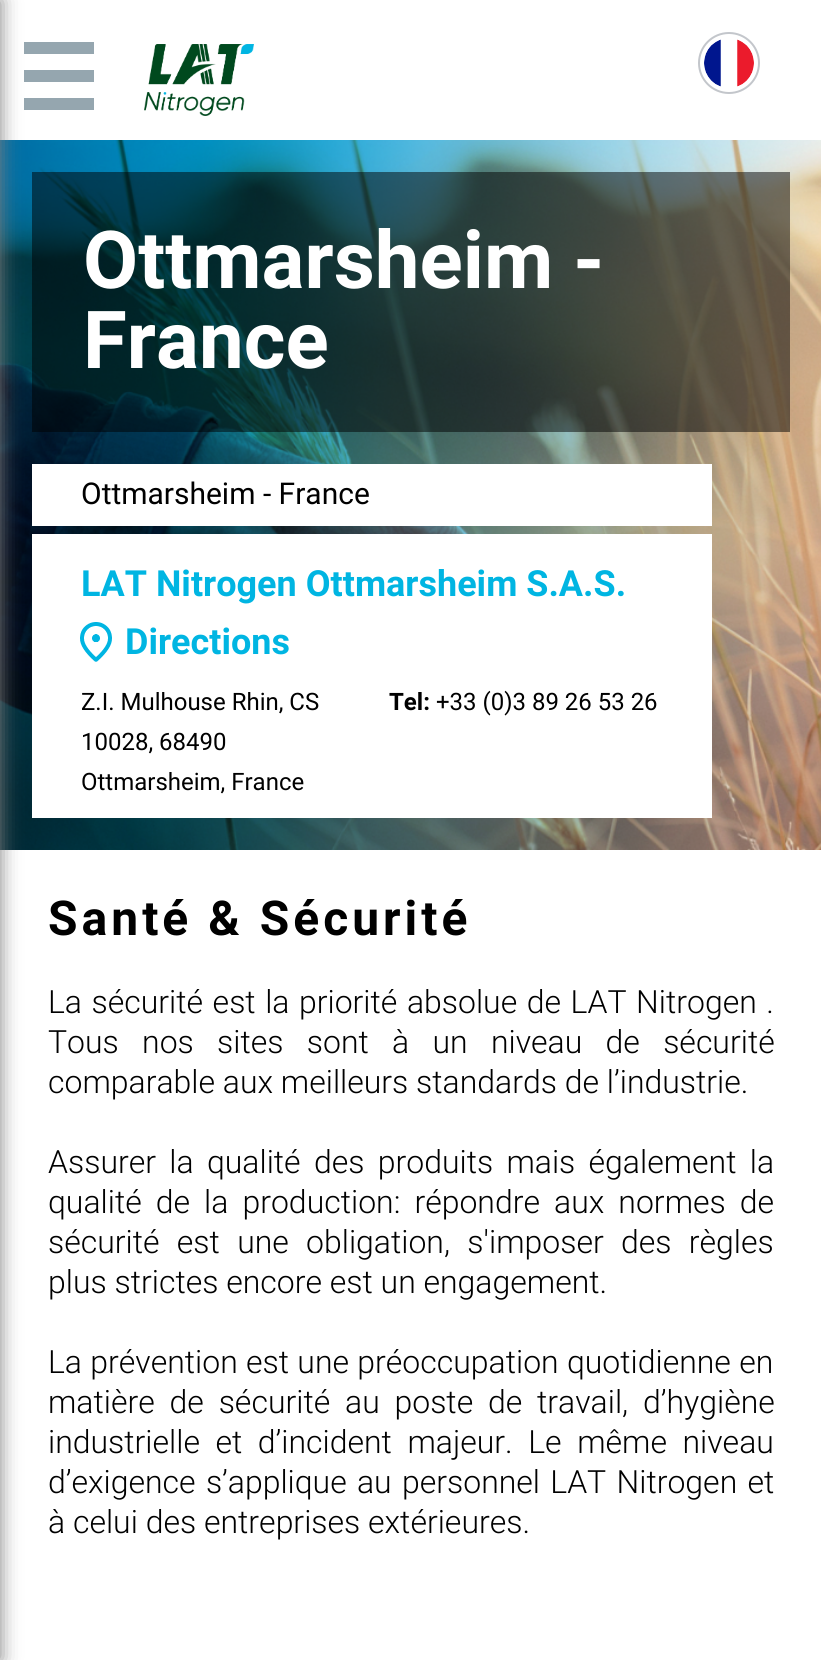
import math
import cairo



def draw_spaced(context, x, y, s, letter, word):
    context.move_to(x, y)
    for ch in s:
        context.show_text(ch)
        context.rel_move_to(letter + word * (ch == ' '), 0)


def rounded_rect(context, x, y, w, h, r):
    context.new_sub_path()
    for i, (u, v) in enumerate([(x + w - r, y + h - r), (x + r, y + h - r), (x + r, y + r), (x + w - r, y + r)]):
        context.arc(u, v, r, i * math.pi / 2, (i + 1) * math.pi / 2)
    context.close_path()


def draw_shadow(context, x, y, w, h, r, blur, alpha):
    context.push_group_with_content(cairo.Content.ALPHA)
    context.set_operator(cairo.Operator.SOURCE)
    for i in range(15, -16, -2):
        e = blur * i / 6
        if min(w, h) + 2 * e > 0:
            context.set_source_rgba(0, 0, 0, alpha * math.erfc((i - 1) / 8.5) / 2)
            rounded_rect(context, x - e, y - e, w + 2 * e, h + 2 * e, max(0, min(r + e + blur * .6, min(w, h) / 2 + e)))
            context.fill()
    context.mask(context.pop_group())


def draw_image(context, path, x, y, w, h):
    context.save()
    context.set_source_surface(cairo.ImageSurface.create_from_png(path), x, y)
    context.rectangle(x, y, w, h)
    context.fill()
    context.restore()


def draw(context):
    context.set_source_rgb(1, 1, 1)
    context.paint()
    draw_image(context, "images/3.png", 0, 140, 821, 710)
    context.set_source_rgb(128 / 255, 128 / 255, 128 / 255)
    draw_shadow(context, -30, 0, 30, 1660, 0, 10, 1)
    context.set_source_rgb(149 / 255, 166 / 255, 175 / 255)
    context.rectangle(24, 42, 70, 12)
    context.fill()
    context.rectangle(24, 70, 70, 12)
    context.fill()
    context.rectangle(24, 98, 70, 12)
    context.fill()
    draw_image(context, "images/1.png", 144, 44, 110, 72)
    context.arc(729, 63, 30, 0, 2 * math.pi)
    context.set_source_rgb(195 / 255, 198 / 255, 203 / 255)
    context.stroke()
    draw_image(context, "images/2.png", 704, 39, 50, 48)
    context.set_source_rgba(0, 0, 0, 0.5)
    context.rectangle(32, 172, 758, 260)
    context.fill()
    context.set_source_rgb(1, 1, 1)
    context.rectangle(32, 464, 680, 62)
    context.fill()
    context.rectangle(32, 534, 680, 284)
    context.fill()
    draw_image(context, "images/4.png", 80, 622, 32, 40)
    context.select_font_face("Roboto", cairo.FontSlant.NORMAL, cairo.FontWeight.BOLD)
    context.set_font_size(80)
    context.move_to(83, 288)
    context.show_text("Ottmarsheim -")
    context.move_to(83, 368)
    context.show_text("France")
    context.select_font_face("Roboto")
    context.set_font_size(30)
    context.set_source_rgb(0, 0, 0)
    context.move_to(81, 504)
    context.show_text("Ottmarsheim - France")
    context.select_font_face("Roboto", cairo.FontSlant.NORMAL, cairo.FontWeight.BOLD)
    context.set_font_size(36)
    context.set_source_rgb(0, 181 / 255, 226 / 255)
    context.move_to(81, 596)
    context.show_text("LAT Nitrogen Ottmarsheim S.A.S.")
    context.move_to(125, 654)
    context.show_text("Directions")
    context.select_font_face("Roboto")
    context.set_font_size(24)
    context.set_source_rgb(0, 0, 0)
    context.move_to(81, 710)
    context.show_text("Z.I. Mulhouse Rhin, CS")
    context.move_to(81, 750)
    context.show_text("10028, 68490")
    context.move_to(81, 790)
    context.show_text("Ottmarsheim, France")
    context.select_font_face("Roboto", cairo.FontSlant.NORMAL, cairo.FontWeight.BOLD)
    context.move_to(389, 710)
    context.show_text("Tel:")
    context.select_font_face("Roboto")
    context.move_to(436, 710)
    context.show_text("+33 (0)3 89 26 53 26")
    context.select_font_face("Roboto", cairo.FontSlant.NORMAL, cairo.FontWeight.BOLD)
    context.set_font_size(48)
    draw_spaced(context, 48, 935, "Santé & Sécurité", 4, 0)
    context.select_font_face("Roboto Light")
    context.set_font_size(32)
    draw_spaced(context, 48, 1013, "La sécurité est la priorité absolue de LAT Nitrogen .", 0, 1.75)
    draw_spaced(context, 48, 1053, "Tous nos sites sont à un niveau de sécurité", 0, 15.5)
    context.move_to(48, 1093)
    context.show_text("comparable aux meilleurs standards de l’industrie.")
    draw_spaced(context, 48, 1173, "Assurer la qualité des produits mais également la", 0, 5.5)
    draw_spaced(context, 48, 1213, "qualité de la production: répondre aux normes de", 0, 6.25)
    draw_spaced(context, 48, 1253, "sécurité est une obligation, s'imposer des règles", 0, 9.5)
    context.move_to(48, 1293)
    context.show_text("plus strictes encore est un engagement.")
    draw_spaced(context, 48, 1373, "La prévention est une préoccupation quotidienne en", 0, 0.5)
    draw_spaced(context, 48, 1413, "matière de sécurité au poste de travail, d’hygiène", 0, 7)
    draw_spaced(context, 48, 1453, "industrielle et d’incident majeur. Le même niveau", 0, 7.75)
    draw_spaced(context, 48, 1493, "d’exigence s’applique au personnel LAT Nitrogen et", 0, 2.5)
    context.move_to(48, 1533)
    context.show_text("à celui des entreprises extérieures.")


surface = cairo.ImageSurface(cairo.Format.RGB24, 821, 1660)
context = cairo.Context(surface)
options = cairo.FontOptions()
options.set_hint_metrics(cairo.HintMetrics.OFF)
options.set_hint_style(cairo.HintStyle.NONE)
context.set_font_options(options)
context.set_miter_limit(4)
draw(context)
surface.write_to_png("out.png")
